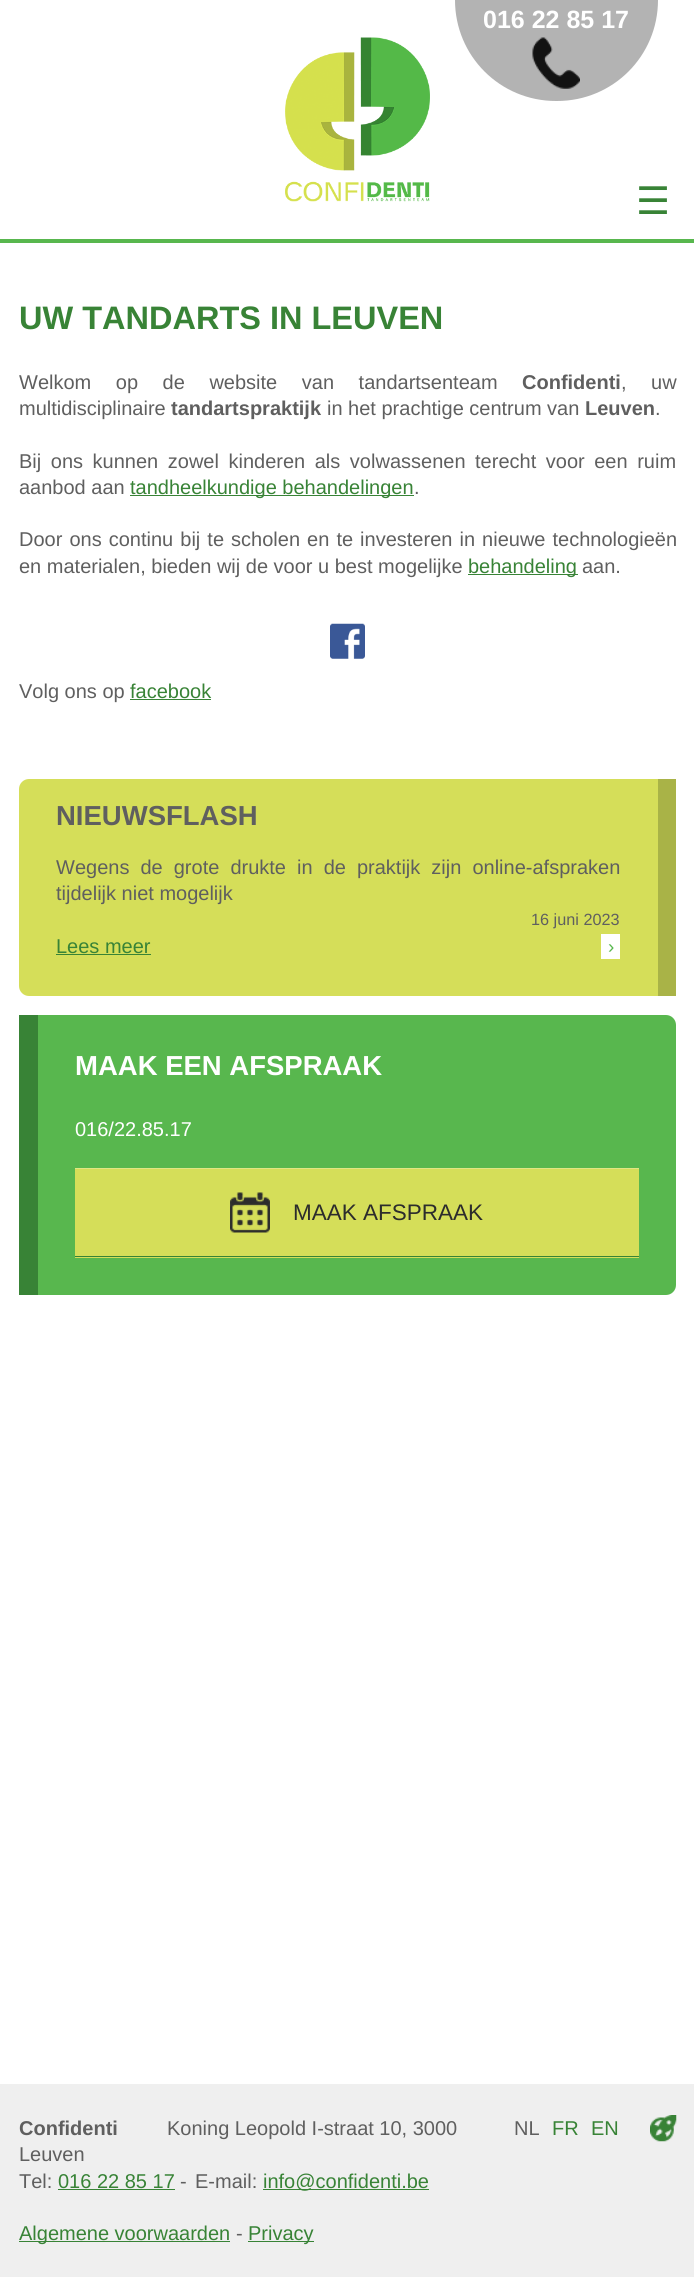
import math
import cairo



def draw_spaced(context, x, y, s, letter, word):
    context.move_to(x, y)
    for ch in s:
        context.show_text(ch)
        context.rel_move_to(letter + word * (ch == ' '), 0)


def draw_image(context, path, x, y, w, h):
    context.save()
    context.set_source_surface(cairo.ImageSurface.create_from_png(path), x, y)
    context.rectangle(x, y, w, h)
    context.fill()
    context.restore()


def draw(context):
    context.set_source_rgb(1, 1, 1)
    context.paint()
    context.set_source_rgb(88 / 255, 183 / 255, 78 / 255)
    context.rectangle(0, 239, 694, 4)
    context.fill()
    context.set_source_rgb(179 / 255, 179 / 255, 179 / 255)
    context.new_path()
    context.move_to(455, 0)
    context.line_to(658, 0)
    context.curve_to(658, 56, 613, 101, 557, 101)
    context.line_to(556, 101)
    context.curve_to(500, 101, 455, 56, 455, 0)
    context.close_path()
    context.fill()
    draw_image(context, "images/1.png", 532, 37, 48, 52)
    draw_image(context, "images/2.png", 285, 37, 145, 165)
    context.set_source_rgb(56 / 255, 131 / 255, 54 / 255)
    context.rectangle(130, 495, 284, 1)
    context.fill()
    context.rectangle(468, 574, 110, 1)
    context.fill()
    draw_image(context, "images/3.png", 330, 623, 35, 36)
    context.rectangle(130, 699, 81, 1)
    context.fill()
    context.set_source_rgb(213 / 255, 222 / 255, 89 / 255)
    context.new_path()
    context.move_to(29, 779)
    context.line_to(676, 779)
    context.line_to(676, 996)
    context.line_to(29, 996)
    context.curve_to(23.5, 996, 19, 991.5, 19, 986)
    context.line_to(19, 789)
    context.curve_to(19, 783.5, 23.5, 779, 29, 779)
    context.close_path()
    context.fill()
    context.set_source_rgb(169 / 255, 179 / 255, 71 / 255)
    context.rectangle(658, 779, 18, 217)
    context.fill()
    context.set_source_rgb(56 / 255, 131 / 255, 54 / 255)
    context.rectangle(56, 954, 95, 1)
    context.fill()
    context.set_source_rgb(1, 1, 1)
    context.rectangle(601, 934, 19, 25)
    context.fill()
    context.set_source_rgb(88 / 255, 183 / 255, 78 / 255)
    context.new_path()
    context.move_to(19, 1015)
    context.line_to(666, 1015)
    context.curve_to(671.5, 1015, 676, 1019.5, 676, 1025)
    context.line_to(676, 1285)
    context.curve_to(676, 1290.5, 671.5, 1295, 666, 1295)
    context.line_to(19, 1295)
    context.close_path()
    context.fill()
    context.set_source_rgb(56 / 255, 131 / 255, 54 / 255)
    context.rectangle(19, 1015, 19, 280)
    context.fill()
    context.set_source_rgb(213 / 255, 222 / 255, 89 / 255)
    context.rectangle(75, 1169, 564, 89)
    context.fill()
    context.set_source_rgb(224 / 255, 230 / 255, 132 / 255)
    context.rectangle(75, 1168, 564, 1)
    context.fill()
    context.set_source_rgb(56 / 255, 131 / 255, 54 / 255)
    context.rectangle(75, 1256, 564, 1)
    context.fill()
    draw_image(context, "images/4.png", 230, 1192, 40, 41)
    context.set_source_rgb(239 / 255, 239 / 255, 239 / 255)
    context.rectangle(0, 2084, 694, 193)
    context.fill()
    draw_image(context, "images/5.png", 650, 2115, 27, 27)
    context.set_source_rgb(56 / 255, 131 / 255, 54 / 255)
    context.rectangle(58, 2189, 117, 1)
    context.fill()
    context.rectangle(263, 2189, 166, 1)
    context.fill()
    context.rectangle(19, 2241, 211, 1)
    context.fill()
    context.rectangle(248, 2241, 66, 1)
    context.fill()
    context.select_font_face("Liberation Sans", cairo.FontSlant.NORMAL, cairo.FontWeight.BOLD)
    context.set_font_size(25)
    context.set_source_rgb(1, 1, 1)
    context.move_to(483, 28)
    context.show_text("016 22 85 17")
    context.select_font_face("DejaVu Sans")
    context.set_font_size(38)
    context.set_source_rgb(56 / 255, 131 / 255, 54 / 255)
    context.move_to(636, 214)
    context.show_text("☰")
    context.select_font_face("Liberation Sans", cairo.FontSlant.NORMAL, cairo.FontWeight.BOLD)
    context.set_font_size(32.5)
    context.move_to(19, 329)
    context.show_text("UW TANDARTS IN LEUVEN")
    context.select_font_face("Liberation Sans")
    context.set_font_size(20)
    context.set_source_rgb(95 / 255, 95 / 255, 95 / 255)
    draw_spaced(context, 19, 389, "Welkom op de website van tandartsenteam", 0, 19)
    context.select_font_face("Liberation Sans", cairo.FontSlant.NORMAL, cairo.FontWeight.BOLD)
    context.move_to(522, 389)
    context.show_text("Confidenti")
    context.select_font_face("Liberation Sans")
    draw_spaced(context, 621, 389, ", uw", 0, 19)
    context.move_to(19, 415)
    context.show_text("multidisciplinaire")
    context.select_font_face("Liberation Sans", cairo.FontSlant.NORMAL, cairo.FontWeight.BOLD)
    context.move_to(171, 415)
    context.show_text("tandartspraktijk")
    context.select_font_face("Liberation Sans")
    context.move_to(327, 415)
    context.show_text("in het prachtige centrum van")
    context.select_font_face("Liberation Sans", cairo.FontSlant.NORMAL, cairo.FontWeight.BOLD)
    context.move_to(585, 415)
    context.show_text("Leuven")
    context.select_font_face("Liberation Sans")
    context.move_to(655, 415)
    context.show_text(".")
    draw_spaced(context, 19, 468, "Bij ons kunnen zowel kinderen als volwassenen terecht voor een ruim", 0, 4)
    context.move_to(19, 494)
    context.show_text("aanbod aan")
    context.set_source_rgb(56 / 255, 131 / 255, 54 / 255)
    context.move_to(130, 494)
    context.show_text("tandheelkundige behandelingen")
    context.set_source_rgb(95 / 255, 95 / 255, 95 / 255)
    context.move_to(414, 494)
    context.show_text(".")
    draw_spaced(context, 19, 546, "Door ons continu bij te scholen en te investeren in nieuwe technologieën", 0, 1.5)
    context.move_to(19, 573)
    context.show_text("en materialen, bieden wij de voor u best mogelijke")
    context.set_source_rgb(56 / 255, 131 / 255, 54 / 255)
    context.move_to(468, 573)
    context.show_text("behandeling")
    context.set_source_rgb(95 / 255, 95 / 255, 95 / 255)
    context.move_to(582, 573)
    context.show_text("aan.")
    context.move_to(19, 698)
    context.show_text("Volg ons op")
    context.set_source_rgb(56 / 255, 131 / 255, 54 / 255)
    context.move_to(130, 698)
    context.show_text("facebook")
    context.select_font_face("Liberation Sans", cairo.FontSlant.NORMAL, cairo.FontWeight.BOLD)
    context.set_font_size(27.5)
    context.set_source_rgb(95 / 255, 95 / 255, 95 / 255)
    context.move_to(56, 825)
    context.show_text("NIEUWSFLASH")
    context.select_font_face("Liberation Sans")
    context.set_font_size(20)
    draw_spaced(context, 56, 874, "Wegens de grote drukte in de praktijk zijn online-afspraken", 0, 5.5)
    context.move_to(56, 900)
    context.show_text("tijdelijk niet mogelijk")
    context.set_font_size(16.25)
    context.move_to(531, 925)
    context.show_text("16 juni 2023")
    context.set_font_size(20)
    context.set_source_rgb(56 / 255, 131 / 255, 54 / 255)
    context.move_to(56, 953)
    context.show_text("Lees meer")
    context.set_font_size(19)
    context.set_source_rgb(88 / 255, 183 / 255, 78 / 255)
    context.move_to(608, 953)
    context.show_text("›")
    context.select_font_face("Liberation Sans", cairo.FontSlant.NORMAL, cairo.FontWeight.BOLD)
    context.set_font_size(27.5)
    context.set_source_rgb(1, 1, 1)
    context.move_to(75, 1075)
    context.show_text("MAAK EEN AFSPRAAK")
    context.select_font_face("Liberation Sans")
    context.set_font_size(20)
    context.move_to(75, 1136)
    context.show_text("016/22.85.17")
    context.set_font_size(22.5)
    context.set_source_rgb(44 / 255, 44 / 255, 44 / 255)
    context.move_to(293, 1220)
    context.show_text("MAAK AFSPRAAK")
    context.select_font_face("Liberation Sans", cairo.FontSlant.NORMAL, cairo.FontWeight.BOLD)
    context.set_font_size(20)
    context.set_source_rgb(95 / 255, 95 / 255, 95 / 255)
    context.move_to(19, 2135)
    context.show_text("Confidenti")
    context.select_font_face("Liberation Sans")
    context.move_to(167, 2135)
    context.show_text("Koning Leopold I-straat 10, 3000")
    context.move_to(19, 2161)
    context.show_text("Leuven")
    context.move_to(514, 2135)
    context.show_text("NL")
    context.set_source_rgb(56 / 255, 131 / 255, 54 / 255)
    context.move_to(552, 2135)
    context.show_text("FR")
    context.move_to(591, 2135)
    context.show_text("EN")
    context.set_source_rgb(95 / 255, 95 / 255, 95 / 255)
    context.move_to(19, 2188)
    context.show_text("Tel:")
    context.set_source_rgb(56 / 255, 131 / 255, 54 / 255)
    context.move_to(58, 2188)
    context.show_text("016 22 85 17")
    context.set_source_rgb(95 / 255, 95 / 255, 95 / 255)
    context.move_to(180, 2188)
    context.show_text("-")
    context.move_to(195, 2188)
    context.show_text("E-mail:")
    context.set_source_rgb(56 / 255, 131 / 255, 54 / 255)
    context.move_to(263, 2188)
    context.show_text("info@confidenti.be")
    context.move_to(19, 2240)
    context.show_text("Algemene voorwaarden")
    context.set_source_rgb(95 / 255, 95 / 255, 95 / 255)
    context.move_to(236, 2240)
    context.show_text("-")
    context.set_source_rgb(56 / 255, 131 / 255, 54 / 255)
    context.move_to(248, 2240)
    context.show_text("Privacy")


surface = cairo.ImageSurface(cairo.Format.RGB24, 694, 2277)
context = cairo.Context(surface)
options = cairo.FontOptions()
options.set_hint_metrics(cairo.HintMetrics.OFF)
options.set_hint_style(cairo.HintStyle.NONE)
context.set_font_options(options)
context.set_miter_limit(4)
draw(context)
surface.write_to_png("out.png")
